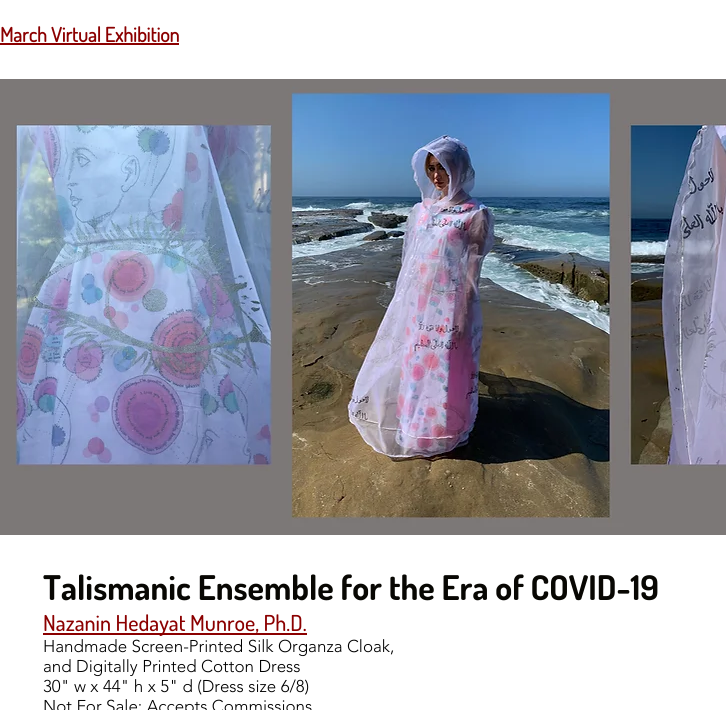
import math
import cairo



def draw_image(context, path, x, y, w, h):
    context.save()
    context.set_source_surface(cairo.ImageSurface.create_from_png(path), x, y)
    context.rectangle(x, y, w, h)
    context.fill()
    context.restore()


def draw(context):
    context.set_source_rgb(1, 1, 1)
    context.paint()
    context.set_source_rgb(139 / 255, 0, 0)
    context.rectangle(0, 43, 179, 2)
    context.fill()
    draw_image(context, "images/1.png", 0, 79, 726, 456)
    context.rectangle(43, 633, 264, 2)
    context.fill()
    context.select_font_face("Dosis", cairo.FontSlant.NORMAL, cairo.FontWeight.BOLD)
    context.set_font_size(20)
    context.move_to(0, 42)
    context.show_text("March Virtual Exhibition")
    context.select_font_face("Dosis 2", cairo.FontSlant.NORMAL, cairo.FontWeight.BOLD)
    context.set_font_size(34)
    context.set_source_rgb(8 / 255, 7 / 255, 3 / 255)
    context.move_to(43, 600)
    context.show_text("Talismanic Ensemble for the Era of COVID-19")
    context.select_font_face("Dosis Medium")
    context.set_font_size(22)
    context.set_source_rgb(139 / 255, 0, 0)
    context.move_to(43, 631)
    context.show_text("Nazanin Hedayat Munroe, Ph.D.")
    context.select_font_face("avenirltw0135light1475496 Light")
    context.set_font_size(17)
    context.set_source_rgb(0, 0, 0)
    context.move_to(43, 652)
    context.show_text("Handmade Screen-Printed Silk Organza Cloak,")
    context.move_to(43, 672)
    context.show_text("and Digitally Printed Cotton Dress")
    context.move_to(43, 692)
    context.show_text("30\" w x 44\" h x 5\" d (Dress size 6/8)")
    context.move_to(43, 712)
    context.show_text("Not For Sale; Accepts Commissions")


surface = cairo.ImageSurface(cairo.Format.RGB24, 726, 710)
context = cairo.Context(surface)
options = cairo.FontOptions()
options.set_hint_metrics(cairo.HintMetrics.OFF)
options.set_hint_style(cairo.HintStyle.NONE)
context.set_font_options(options)
context.set_miter_limit(4)
draw(context)
surface.write_to_png("out.png")
